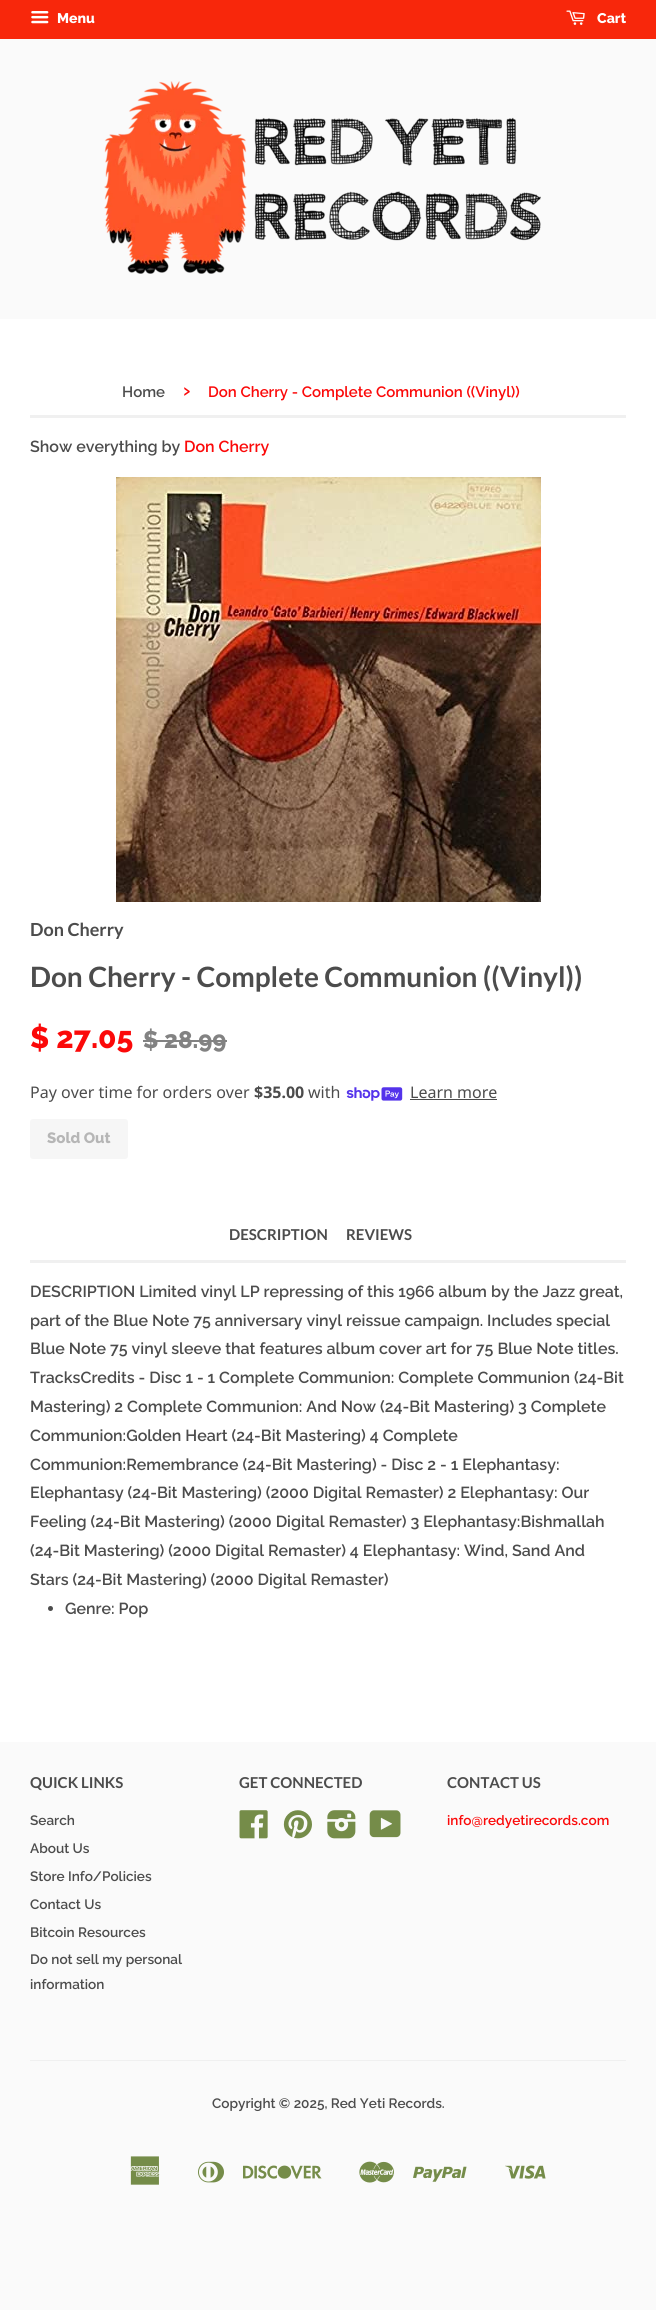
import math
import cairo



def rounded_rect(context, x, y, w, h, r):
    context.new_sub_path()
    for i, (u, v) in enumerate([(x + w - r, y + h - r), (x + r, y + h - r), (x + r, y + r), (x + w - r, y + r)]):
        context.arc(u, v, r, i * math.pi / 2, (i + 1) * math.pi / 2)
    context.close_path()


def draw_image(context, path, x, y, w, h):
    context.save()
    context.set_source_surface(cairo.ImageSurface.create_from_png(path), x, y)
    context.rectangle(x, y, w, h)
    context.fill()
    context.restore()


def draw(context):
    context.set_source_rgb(250 / 255, 250 / 255, 250 / 255)
    context.paint()
    context.set_source_rgb(1, 1, 1)
    context.rectangle(0, 319, 656, 1423)
    context.fill()
    context.set_source_rgb(248 / 255, 39 / 255, 11 / 255)
    context.rectangle(0, 0, 656, 39)
    context.fill()
    draw_image(context, "images/1.png", 31, 11, 18, 13)
    draw_image(context, "images/2.png", 566, 10, 19, 15)
    draw_image(context, "images/3.png", 104, 81, 437, 193)
    context.set_source_rgb(240 / 255, 240 / 255, 240 / 255)
    context.rectangle(30, 415, 596, 3)
    context.fill()
    draw_image(context, "images/4.png", 116, 477, 425, 425)
    context.set_source_rgb(130 / 255, 130 / 255, 130 / 255)
    context.rectangle(143, 1040, 84, 2)
    context.fill()
    draw_image(context, "images/5.png", 346, 1087, 57, 14)
    context.set_source_rgb(76 / 255, 76 / 255, 76 / 255)
    context.rectangle(410, 1099, 87, 1)
    context.fill()
    context.set_source_rgb(246 / 255, 246 / 255, 246 / 255)
    rounded_rect(context, 30, 1119, 98, 40, 3)
    context.fill()
    context.set_source_rgb(240 / 255, 240 / 255, 240 / 255)
    context.rectangle(30, 1260, 596, 3)
    context.fill()
    context.set_source_rgb(76 / 255, 76 / 255, 76 / 255)
    context.arc(50.5, 1608.5, 2.5, 0, 2 * math.pi)
    context.fill()
    draw_image(context, "images/6.png", 239, 1810, 29, 29)
    draw_image(context, "images/7.png", 283, 1810, 29, 29)
    draw_image(context, "images/8.png", 327, 1810, 29, 29)
    draw_image(context, "images/9.png", 369, 1810, 32, 28)
    context.set_source_rgb(240 / 255, 240 / 255, 240 / 255)
    context.rectangle(30, 2060, 596, 1)
    context.fill()
    draw_image(context, "images/10.png", 130, 2156, 30, 29)
    draw_image(context, "images/11.png", 198, 2161, 26, 22)
    draw_image(context, "images/12.png", 243, 2165, 79, 14)
    draw_image(context, "images/13.png", 359, 2161, 35, 22)
    draw_image(context, "images/14.png", 413, 2166, 54, 16)
    draw_image(context, "images/15.png", 505, 2165, 41, 14)
    context.select_font_face("Raleway ExtraBold")
    context.set_font_size(14)
    context.set_source_rgb(1, 1, 1)
    context.move_to(57, 23)
    context.show_text("Menu")
    context.move_to(597, 23)
    context.show_text("Cart")
    context.select_font_face("Raleway SemiBold")
    context.set_font_size(15)
    context.set_source_rgb(76 / 255, 76 / 255, 76 / 255)
    context.move_to(122, 397)
    context.show_text("Home")
    context.set_font_size(21)
    context.set_source_rgb(251 / 255, 9 / 255, 9 / 255)
    context.move_to(183, 397)
    context.show_text("›")
    context.set_font_size(15)
    context.move_to(208, 397)
    context.show_text("Don Cherry - Complete Communion ((Vinyl))")
    context.set_font_size(16)
    context.set_source_rgb(76 / 255, 76 / 255, 76 / 255)
    context.move_to(30, 452)
    context.show_text("Show everything by")
    context.set_source_rgb(251 / 255, 9 / 255, 9 / 255)
    context.move_to(184, 452)
    context.show_text("Don Cherry")
    context.select_font_face("Lato", cairo.FontSlant.NORMAL, cairo.FontWeight.BOLD)
    context.set_font_size(18)
    context.set_source_rgb(76 / 255, 76 / 255, 76 / 255)
    context.move_to(30, 936)
    context.show_text("Don Cherry")
    context.set_font_size(28)
    context.move_to(30, 987)
    context.show_text("Don Cherry - Complete Communion ((Vinyl))")
    context.select_font_face("Raleway ExtraBold")
    context.set_font_size(30)
    context.set_source_rgb(251 / 255, 9 / 255, 9 / 255)
    context.move_to(30, 1048)
    context.show_text("$ 27.05")
    context.set_font_size(24)
    context.set_source_rgb(130 / 255, 130 / 255, 130 / 255)
    context.move_to(143, 1048)
    context.show_text("$ 28.99")
    context.select_font_face("Noto Sans")
    context.set_font_size(16)
    context.set_source_rgb(76 / 255, 76 / 255, 76 / 255)
    context.move_to(30, 1098)
    context.show_text("Pay over time for orders over")
    context.select_font_face("Noto Sans", cairo.FontSlant.NORMAL, cairo.FontWeight.BOLD)
    context.move_to(254, 1098)
    context.show_text("$35.00")
    context.select_font_face("Noto Sans")
    context.move_to(308, 1098)
    context.show_text("with")
    context.move_to(410, 1098)
    context.show_text("Learn more")
    context.select_font_face("Raleway ExtraBold")
    context.set_font_size(15)
    context.set_source_rgb(182 / 255, 182 / 255, 182 / 255)
    context.move_to(47, 1143)
    context.show_text("Sold Out")
    context.select_font_face("Lato", cairo.FontSlant.NORMAL, cairo.FontWeight.BOLD)
    context.set_source_rgb(76 / 255, 76 / 255, 76 / 255)
    context.move_to(229, 1240)
    context.show_text("DESCRIPTION")
    context.move_to(346, 1240)
    context.show_text("REVIEWS")
    context.select_font_face("Raleway SemiBold")
    context.set_font_size(16)
    context.move_to(30, 1297)
    context.show_text("DESCRIPTION Limited vinyl LP repressing of this 1966 album by the Jazz great,")
    context.move_to(30, 1326)
    context.show_text("part of the Blue Note 75 anniversary vinyl reissue campaign. Includes special")
    context.move_to(30, 1354)
    context.show_text("Blue Note 75 vinyl sleeve that features album cover art for 75 Blue Note titles.")
    context.move_to(30, 1383)
    context.show_text("TracksCredits - Disc 1 - 1 Complete Communion: Complete Communion (24-Bit")
    context.move_to(30, 1412)
    context.show_text("Mastering) 2 Complete Communion: And Now (24-Bit Mastering) 3 Complete")
    context.move_to(30, 1441)
    context.show_text("Communion:Golden Heart (24-Bit Mastering) 4 Complete")
    context.move_to(30, 1470)
    context.show_text("Communion:Remembrance (24-Bit Mastering) - Disc 2 - 1 Elephantasy:")
    context.move_to(30, 1498)
    context.show_text("Elephantasy (24-Bit Mastering) (2000 Digital Remaster) 2 Elephantasy: Our")
    context.move_to(30, 1527)
    context.show_text("Feeling (24-Bit Mastering) (2000 Digital Remaster) 3 Elephantasy:Bishmallah")
    context.move_to(30, 1556)
    context.show_text("(24-Bit Mastering) (2000 Digital Remaster) 4 Elephantasy: Wind, Sand And")
    context.move_to(30, 1585)
    context.show_text("Stars (24-Bit Mastering) (2000 Digital Remaster)")
    context.move_to(65, 1614)
    context.show_text("Genre: Pop")
    context.select_font_face("Lato", cairo.FontSlant.NORMAL, cairo.FontWeight.BOLD)
    context.set_font_size(15)
    context.move_to(30, 1788)
    context.show_text("QUICK LINKS")
    context.select_font_face("Raleway SemiBold")
    context.set_font_size(13.6)
    context.move_to(30, 1825)
    context.show_text("Search")
    context.move_to(30, 1853)
    context.show_text("About Us")
    context.move_to(30, 1881)
    context.show_text("Store Info/Policies")
    context.move_to(30, 1909)
    context.show_text("Contact Us")
    context.move_to(30, 1937)
    context.show_text("Bitcoin Resources")
    context.move_to(30, 1964)
    context.show_text("Do not sell my personal")
    context.move_to(30, 1989)
    context.show_text("information")
    context.select_font_face("Lato", cairo.FontSlant.NORMAL, cairo.FontWeight.BOLD)
    context.set_font_size(15)
    context.move_to(239, 1788)
    context.show_text("GET CONNECTED")
    context.move_to(447, 1788)
    context.show_text("CONTACT US")
    context.select_font_face("Raleway SemiBold")
    context.set_font_size(13.6)
    context.set_source_rgb(251 / 255, 9 / 255, 9 / 255)
    context.move_to(447, 1825)
    context.show_text("info@redyetirecords.com")
    context.set_source_rgb(76 / 255, 76 / 255, 76 / 255)
    context.move_to(212, 2108)
    context.show_text("Copyright © 2025, Red Yeti Records.")


surface = cairo.ImageSurface(cairo.Format.RGB24, 656, 2310)
context = cairo.Context(surface)
options = cairo.FontOptions()
options.set_hint_metrics(cairo.HintMetrics.OFF)
options.set_hint_style(cairo.HintStyle.NONE)
context.set_font_options(options)
context.set_miter_limit(4)
draw(context)
surface.write_to_png("out.png")
